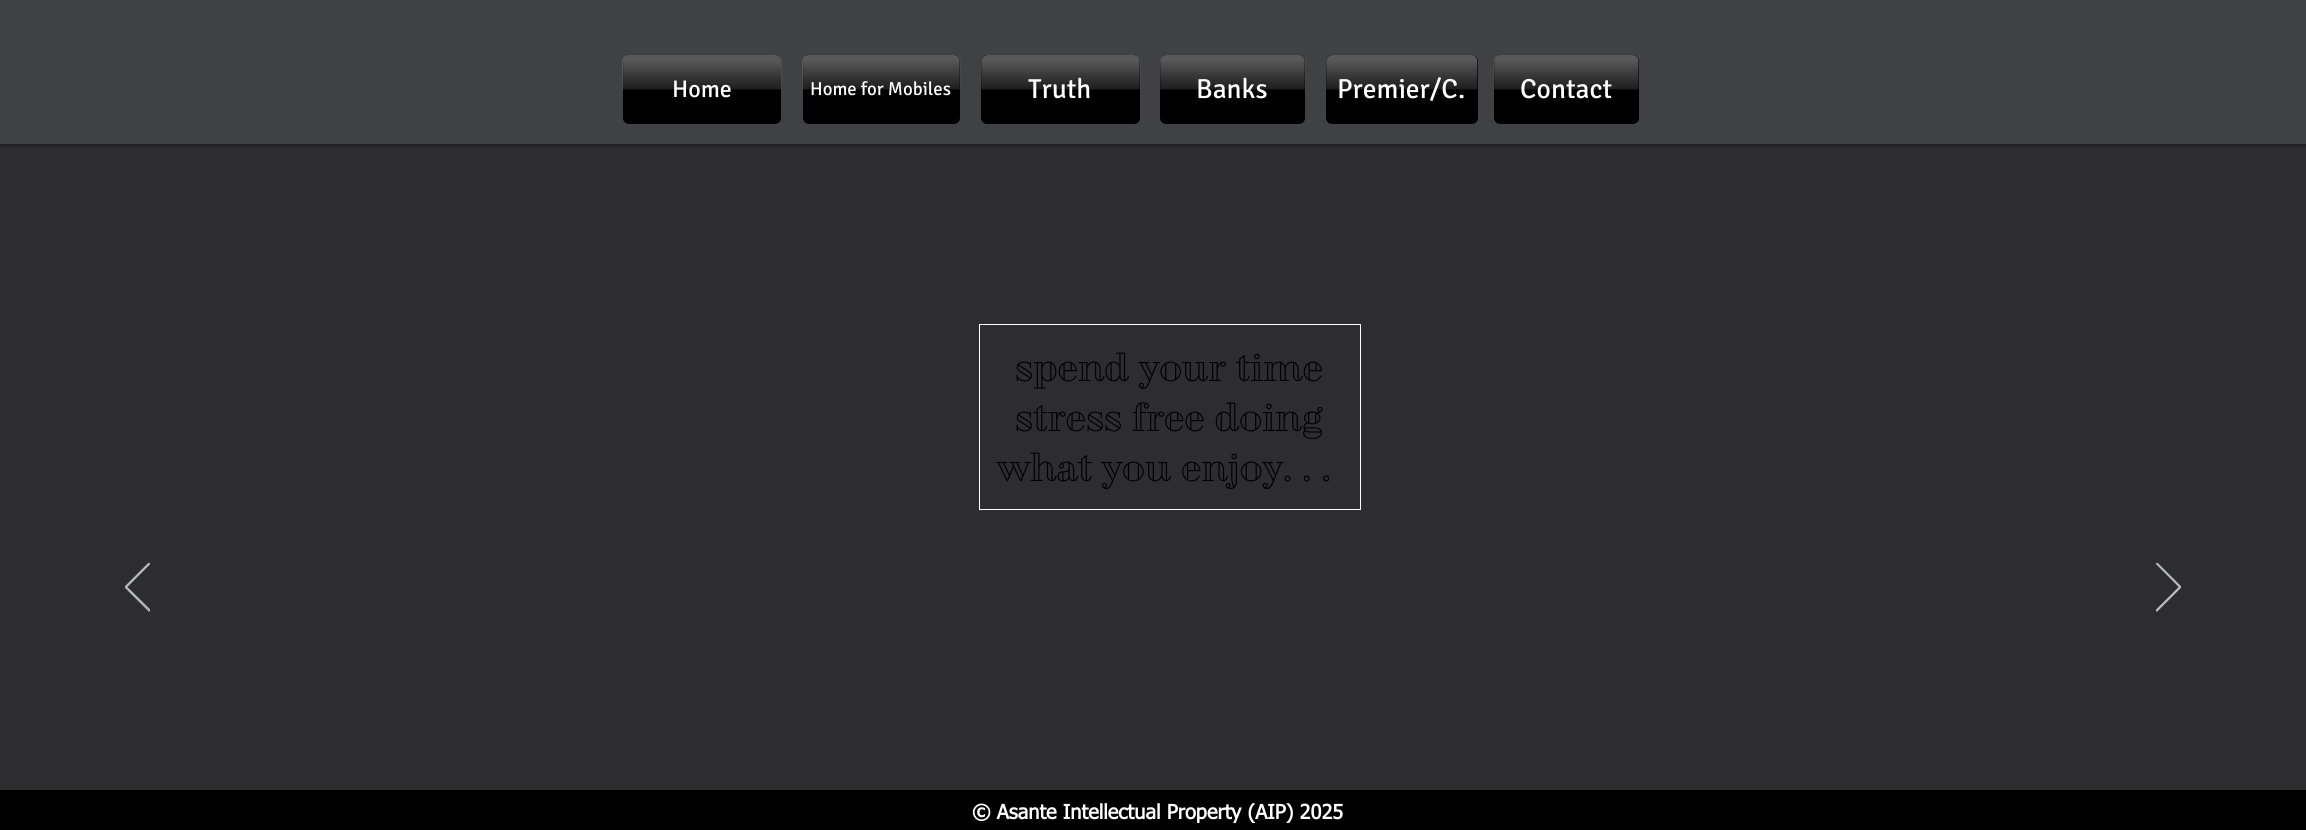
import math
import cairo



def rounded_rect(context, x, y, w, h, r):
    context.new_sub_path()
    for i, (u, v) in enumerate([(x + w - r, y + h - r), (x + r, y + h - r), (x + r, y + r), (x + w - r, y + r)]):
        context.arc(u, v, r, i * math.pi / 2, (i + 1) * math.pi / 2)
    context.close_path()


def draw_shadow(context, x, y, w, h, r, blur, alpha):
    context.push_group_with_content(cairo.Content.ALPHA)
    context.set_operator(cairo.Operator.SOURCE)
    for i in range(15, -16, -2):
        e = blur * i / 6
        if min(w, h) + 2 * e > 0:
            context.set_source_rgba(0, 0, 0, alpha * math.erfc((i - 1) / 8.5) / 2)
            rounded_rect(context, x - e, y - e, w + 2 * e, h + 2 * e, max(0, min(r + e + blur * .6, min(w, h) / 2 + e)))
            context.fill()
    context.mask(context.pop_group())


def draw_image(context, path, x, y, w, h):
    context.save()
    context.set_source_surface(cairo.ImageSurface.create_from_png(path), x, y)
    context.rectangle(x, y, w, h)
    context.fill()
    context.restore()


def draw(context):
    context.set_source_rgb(45 / 255, 45 / 255, 47 / 255)
    context.paint()
    context.set_source_rgb(0, 0, 0)
    draw_shadow(context, 0, 0, 2306, 144, 0, 3, 0.7)
    context.set_source_rgb(64 / 255, 65 / 255, 68 / 255)
    context.rectangle(0, 0, 2306, 144)
    context.fill()
    context.set_source_rgb(0, 0, 0)
    rounded_rect(context, 623, 55, 158, 69, 6)
    context.fill()
    draw_image(context, "images/1.png", 622, 55, 160, 35)
    rounded_rect(context, 803, 55, 157, 69, 6)
    context.fill()
    draw_image(context, "images/2.png", 802, 55, 159, 35)
    rounded_rect(context, 981, 55, 159, 69, 6)
    context.fill()
    draw_image(context, "images/3.png", 981, 55, 160, 35)
    rounded_rect(context, 1160, 55, 145, 69, 6)
    context.fill()
    draw_image(context, "images/4.png", 1160, 55, 146, 35)
    rounded_rect(context, 1326, 55, 152, 69, 6)
    context.fill()
    draw_image(context, "images/5.png", 1326, 55, 152, 35)
    rounded_rect(context, 1494, 55, 145, 69, 6)
    context.fill()
    draw_image(context, "images/6.png", 1493, 55, 146, 35)
    context.rectangle(979.5, 324.5, 381, 185)
    context.set_source_rgb(1, 1, 1)
    context.set_line_width(1)
    context.stroke()
    context.save()
    context.rectangle(125, 563, 25, 50)
    context.clip()
    context.new_path()
    context.move_to(149, 611)
    context.line_to(125, 587)
    context.line_to(149, 563)
    context.line_to(150, 563.5)
    context.line_to(126.5, 587)
    context.line_to(150, 610)
    context.close_path()
    context.set_source_rgb(184 / 255, 187 / 255, 193 / 255)
    context.set_line_width(1.2)
    context.stroke()
    context.restore()
    context.set_source_rgb(184 / 255, 187 / 255, 193 / 255)
    context.new_path()
    context.move_to(2157, 611)
    context.line_to(2181, 587)
    context.line_to(2157, 563)
    context.line_to(2156, 564)
    context.line_to(2180, 587)
    context.line_to(2156, 610)
    context.close_path()
    context.fill()
    context.save()
    context.rectangle(2156, 563, 25, 50)
    context.clip()
    context.new_path()
    context.move_to(2157, 611)
    context.line_to(2181, 587)
    context.line_to(2157, 563)
    context.line_to(2156.5, 563.5)
    context.line_to(2179.5, 587)
    context.line_to(2156.5, 610)
    context.close_path()
    context.set_line_width(1.2)
    context.stroke()
    context.restore()
    context.set_source_rgb(0, 0, 0)
    context.rectangle(0, 790, 2306, 40)
    context.fill()
    context.select_font_face("Signika")
    context.set_font_size(24)
    context.set_source_rgb(1, 1, 1)
    context.move_to(672, 97)
    context.show_text("Home")
    context.set_font_size(18.75)
    context.move_to(810, 95)
    context.show_text("Home for Mobiles")
    context.set_font_size(27.5)
    context.move_to(1028, 98)
    context.show_text("Truth")
    context.move_to(1196, 98)
    context.show_text("Banks")
    context.move_to(1337, 98)
    context.show_text("Premier/C.")
    context.move_to(1520, 98)
    context.show_text("Contact")
    context.select_font_face("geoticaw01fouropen", cairo.FontSlant.NORMAL, cairo.FontWeight.BOLD)
    context.set_font_size(37.5)
    context.set_source_rgb(0, 0, 0)
    context.move_to(1015, 381)
    context.show_text("spend your time")
    context.move_to(1015, 431)
    context.show_text("stress free doing")
    context.move_to(997, 481)
    context.show_text("what you enjoy. . .")
    context.select_font_face("tahoma", cairo.FontSlant.NORMAL, cairo.FontWeight.BOLD)
    context.set_font_size(20)
    context.set_source_rgb(1, 1, 1)
    context.move_to(972, 819)
    context.show_text("© Asante Intellectual Property (AIP) 2025")


surface = cairo.ImageSurface(cairo.Format.RGB24, 2306, 830)
context = cairo.Context(surface)
options = cairo.FontOptions()
options.set_hint_metrics(cairo.HintMetrics.OFF)
options.set_hint_style(cairo.HintStyle.NONE)
context.set_font_options(options)
context.set_miter_limit(4)
draw(context)
surface.write_to_png("out.png")
